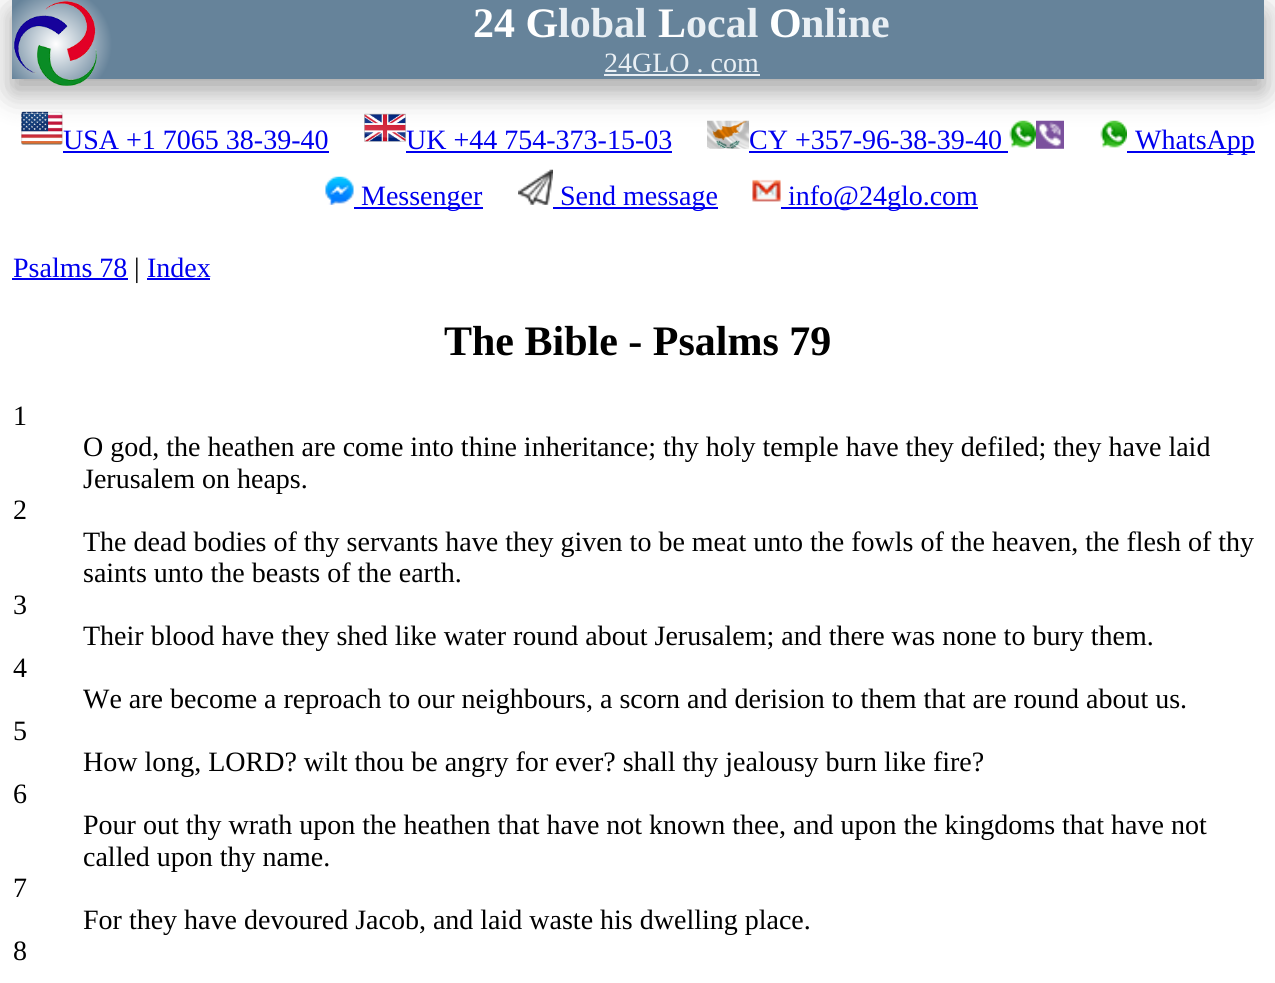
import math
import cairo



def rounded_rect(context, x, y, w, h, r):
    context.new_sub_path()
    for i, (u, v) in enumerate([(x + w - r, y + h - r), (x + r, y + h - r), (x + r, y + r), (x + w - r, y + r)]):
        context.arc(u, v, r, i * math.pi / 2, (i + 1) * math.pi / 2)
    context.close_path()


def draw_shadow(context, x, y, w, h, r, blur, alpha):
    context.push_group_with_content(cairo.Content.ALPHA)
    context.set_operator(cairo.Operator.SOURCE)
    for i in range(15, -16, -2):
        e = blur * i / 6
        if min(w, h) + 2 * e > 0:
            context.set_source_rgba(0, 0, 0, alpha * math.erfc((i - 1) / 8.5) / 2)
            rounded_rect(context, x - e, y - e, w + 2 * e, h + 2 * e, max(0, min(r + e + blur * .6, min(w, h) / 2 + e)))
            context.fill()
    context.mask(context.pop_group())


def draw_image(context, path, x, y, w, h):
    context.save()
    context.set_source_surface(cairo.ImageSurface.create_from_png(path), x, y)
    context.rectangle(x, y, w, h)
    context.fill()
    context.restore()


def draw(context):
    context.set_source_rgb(1, 1, 1)
    context.paint()
    context.set_source_rgb(0, 0, 0)
    draw_shadow(context, 12, 11, 1252, 78, 0, 17.5, 0.19)
    draw_shadow(context, 12, 14, 1252, 79, 0, 14, 0.2)
    gradient = cairo.RadialGradient(56, 44, 0, 56, 44, 56)
    gradient.add_color_stop_rgba(0, 1, 1, 1, 1)
    gradient.add_color_stop_rgba(1, 102 / 255, 131 / 255, 154 / 255, 1)
    context.set_source(gradient)
    context.rectangle(12, 0, 1252, 79)
    context.fill()
    draw_image(context, "images/1.png", 13, 0, 84, 86)
    context.set_source_rgb(233 / 255, 239 / 255, 244 / 255)
    context.rectangle(604, 74, 156, 2)
    context.fill()
    draw_image(context, "images/2.png", 21, 111, 42, 34)
    context.set_source_rgb(0, 0, 238 / 255)
    context.rectangle(63, 151, 266, 2)
    context.fill()
    draw_image(context, "images/3.png", 364, 113, 42, 29)
    context.rectangle(406, 151, 266, 2)
    context.fill()
    draw_image(context, "images/4.png", 707, 120, 42, 29)
    context.rectangle(749, 151, 259, 2)
    context.fill()
    draw_image(context, "images/5.png", 1009, 120, 27, 28)
    draw_image(context, "images/6.png", 1036, 120, 28, 29)
    draw_image(context, "images/7.png", 1100, 120, 27, 28)
    context.rectangle(1127, 151, 128, 2)
    context.fill()
    draw_image(context, "images/8.png", 325, 176, 29, 29)
    context.rectangle(354, 207, 129, 2)
    context.fill()
    draw_image(context, "images/9.png", 518, 169, 35, 36)
    context.rectangle(553, 207, 165, 2)
    context.fill()
    draw_image(context, "images/10.png", 752, 179, 29, 23)
    context.rectangle(781, 207, 197, 2)
    context.fill()
    context.rectangle(12, 278, 116, 2)
    context.fill()
    context.rectangle(147, 278, 63, 2)
    context.fill()
    context.select_font_face("Liberation Serif", cairo.FontSlant.NORMAL, cairo.FontWeight.BOLD)
    context.set_font_size(42)
    context.set_source_rgb(1, 1, 1)
    context.move_to(473, 37)
    context.show_text("24 G")
    context.set_source_rgb(233 / 255, 239 / 255, 244 / 255)
    context.move_to(558, 37)
    context.show_text("lobal")
    context.set_source_rgb(1, 1, 1)
    context.move_to(658, 37)
    context.show_text("L")
    context.set_source_rgb(233 / 255, 239 / 255, 244 / 255)
    context.move_to(686, 37)
    context.show_text("ocal")
    context.set_source_rgb(1, 1, 1)
    context.move_to(769, 37)
    context.show_text("O")
    context.set_source_rgb(233 / 255, 239 / 255, 244 / 255)
    context.move_to(801, 37)
    context.show_text("nline")
    context.select_font_face("Liberation Serif")
    context.set_font_size(28)
    context.move_to(604, 72)
    context.show_text("24GLO . com")
    context.set_source_rgb(0, 0, 238 / 255)
    context.move_to(63, 149)
    context.show_text("USA +1 7065 38-39-40")
    context.move_to(406, 149)
    context.show_text("UK +44 754-373-15-03")
    context.move_to(749, 149)
    context.show_text("CY +357-96-38-39-40")
    context.move_to(1135, 149)
    context.show_text("WhatsApp")
    context.move_to(361, 205)
    context.show_text("Messenger")
    context.move_to(560, 205)
    context.show_text("Send message")
    context.move_to(788, 205)
    context.show_text("info@24glo.com")
    context.move_to(13, 277)
    context.show_text("Psalms 78")
    context.set_source_rgb(0, 0, 0)
    context.move_to(134, 277)
    context.show_text("|")
    context.set_source_rgb(0, 0, 238 / 255)
    context.move_to(147, 277)
    context.show_text("Index")
    context.select_font_face("Liberation Serif", cairo.FontSlant.NORMAL, cairo.FontWeight.BOLD)
    context.set_font_size(42)
    context.set_source_rgb(0, 0, 0)
    context.move_to(444, 355)
    context.show_text("The Bible - Psalms 79")
    context.select_font_face("Liberation Serif")
    context.set_font_size(28)
    context.move_to(13, 425)
    context.show_text("1")
    context.move_to(83, 456)
    context.show_text("O god, the heathen are come into thine inheritance; thy holy temple have they defiled; they have laid")
    context.move_to(83, 488)
    context.show_text("Jerusalem on heaps.")
    context.move_to(13, 519)
    context.show_text("2")
    context.move_to(83, 551)
    context.show_text("The dead bodies of thy servants have they given to be meat unto the fowls of the heaven, the flesh of thy")
    context.move_to(83, 582)
    context.show_text("saints unto the beasts of the earth.")
    context.move_to(13, 614)
    context.show_text("3")
    context.move_to(83, 645)
    context.show_text("Their blood have they shed like water round about Jerusalem; and there was none to bury them.")
    context.move_to(13, 677)
    context.show_text("4")
    context.move_to(83, 708)
    context.show_text("We are become a reproach to our neighbours, a scorn and derision to them that are round about us.")
    context.move_to(13, 740)
    context.show_text("5")
    context.move_to(83, 771)
    context.show_text("How long, LORD? wilt thou be angry for ever? shall thy jealousy burn like fire?")
    context.move_to(13, 803)
    context.show_text("6")
    context.move_to(83, 834)
    context.show_text("Pour out thy wrath upon the heathen that have not known thee, and upon the kingdoms that have not")
    context.move_to(83, 866)
    context.show_text("called upon thy name.")
    context.move_to(13, 897)
    context.show_text("7")
    context.move_to(83, 929)
    context.show_text("For they have devoured Jacob, and laid waste his dwelling place.")
    context.move_to(13, 960)
    context.show_text("8")


surface = cairo.ImageSurface(cairo.Format.RGB24, 1275, 983)
context = cairo.Context(surface)
options = cairo.FontOptions()
options.set_hint_metrics(cairo.HintMetrics.OFF)
options.set_hint_style(cairo.HintStyle.NONE)
context.set_font_options(options)
context.set_miter_limit(4)
draw(context)
surface.write_to_png("out.png")
